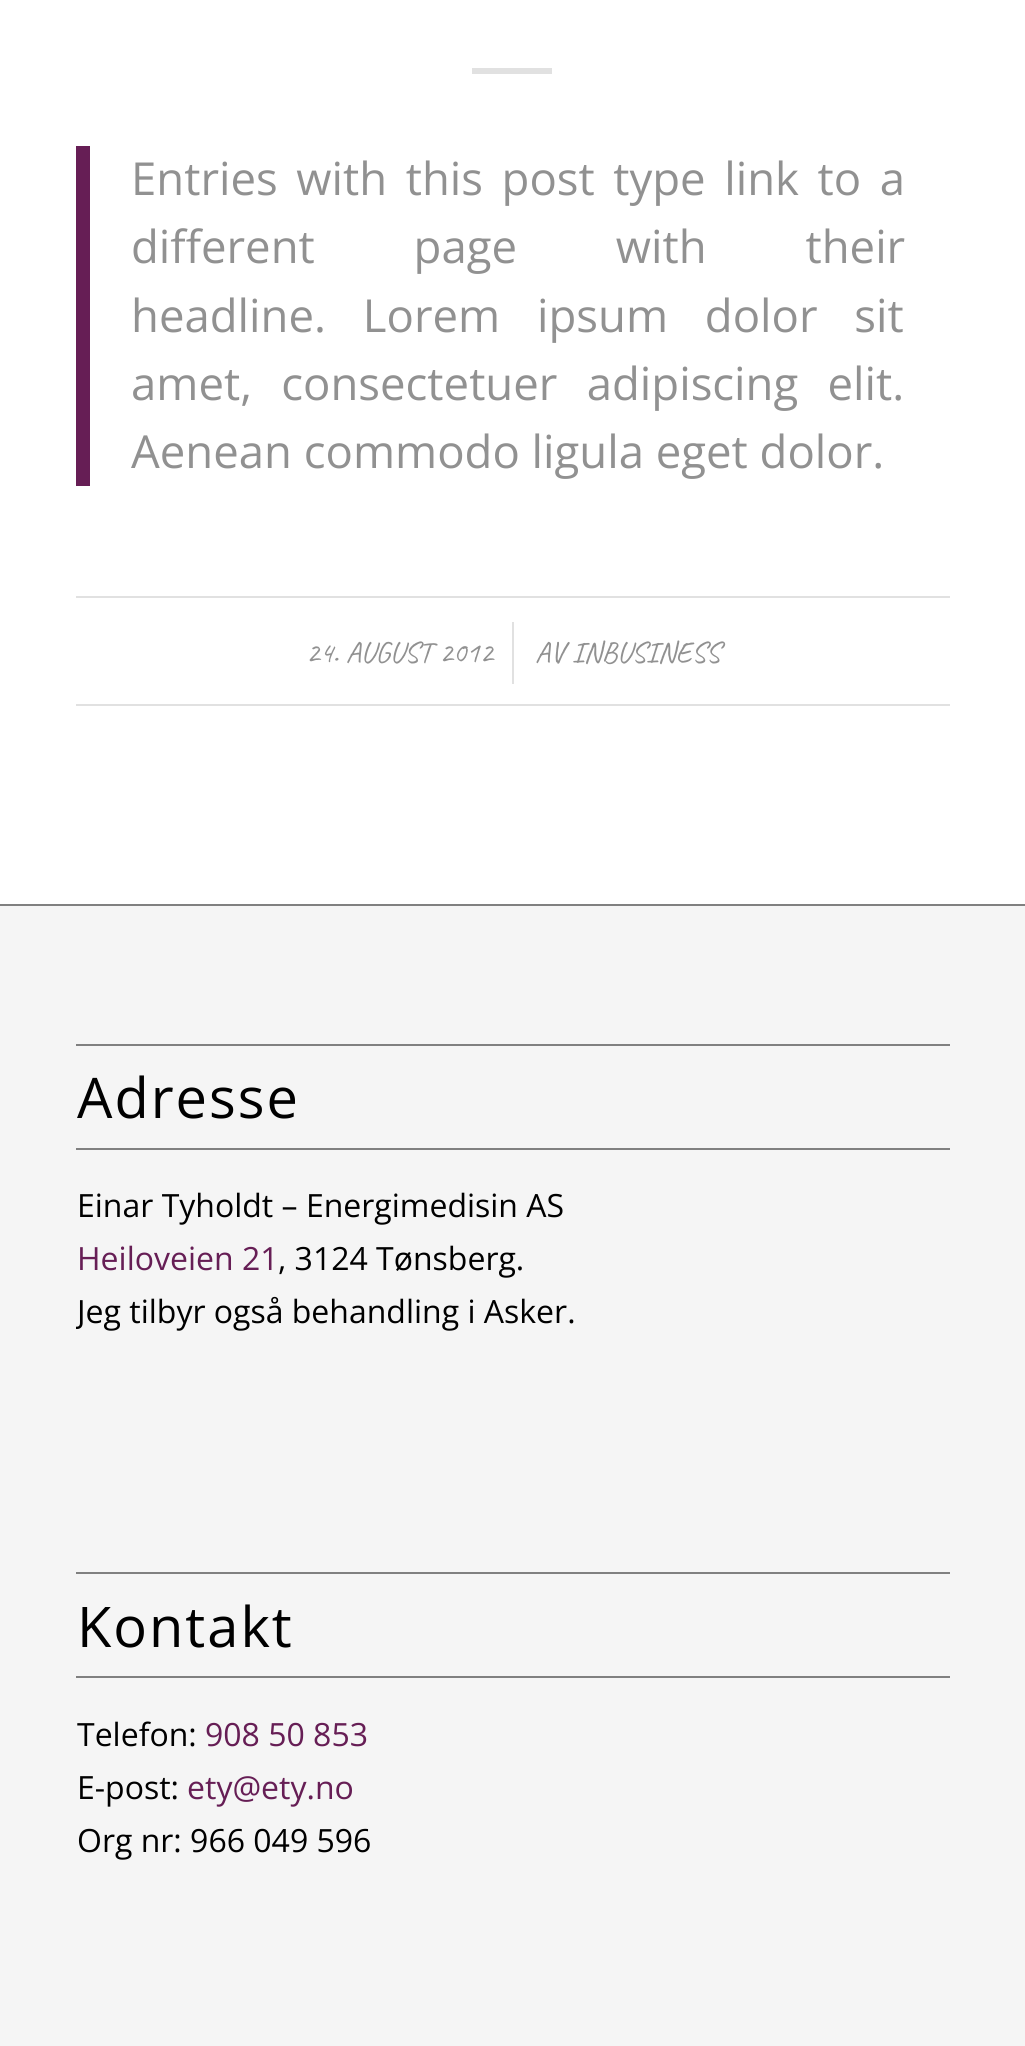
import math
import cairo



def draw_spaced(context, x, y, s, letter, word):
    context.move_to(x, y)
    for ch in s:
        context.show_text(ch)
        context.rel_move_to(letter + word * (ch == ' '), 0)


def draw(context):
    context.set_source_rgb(1, 1, 1)
    context.paint()
    context.set_source_rgb(225 / 255, 225 / 255, 225 / 255)
    context.rectangle(472, 68, 80, 6)
    context.fill()
    context.set_source_rgb(102 / 255, 30 / 255, 85 / 255)
    context.rectangle(76, 146, 14, 340)
    context.fill()
    context.set_source_rgb(225 / 255, 225 / 255, 225 / 255)
    context.rectangle(76, 596, 874, 2)
    context.fill()
    context.rectangle(76, 704, 874, 2)
    context.fill()
    context.rectangle(512, 622, 2, 62)
    context.fill()
    context.set_source_rgb(245 / 255, 245 / 255, 245 / 255)
    context.rectangle(0, 906, 1025, 1140)
    context.fill()
    context.set_source_rgb(128 / 255, 128 / 255, 128 / 255)
    context.rectangle(0, 904, 1025, 2)
    context.fill()
    context.rectangle(76, 1044, 874, 2)
    context.fill()
    context.rectangle(76, 1148, 874, 2)
    context.fill()
    context.rectangle(76, 1572, 874, 2)
    context.fill()
    context.rectangle(76, 1676, 874, 2)
    context.fill()
    context.select_font_face("Open Sans")
    context.set_font_size(45.5)
    context.set_source_rgb(145 / 255, 145 / 255, 145 / 255)
    draw_spaced(context, 131, 195, "Entries with this post type link to a", 0, 6.75)
    draw_spaced(context, 131, 263, "different page with their", 0, 87)
    draw_spaced(context, 131, 332, "headline. Lorem ipsum dolor sit", 0, 25)
    draw_spaced(context, 131, 400, "amet, consectetuer adipiscing elit.", 0, 17.5)
    context.move_to(131, 468)
    context.show_text("Aenean commodo ligula eget dolor.")
    context.select_font_face("Caveat")
    context.set_font_size(29.75)
    context.move_to(306, 662)
    context.show_text("24. AUGUST 2012")
    context.move_to(535, 662)
    context.show_text("AV INBUSINESS")
    context.select_font_face("Open Sans")
    context.set_font_size(56)
    context.set_source_rgb(0, 0, 0)
    draw_spaced(context, 77, 1118, "Adresse", 2, 0)
    context.set_font_size(32)
    context.move_to(77, 1217)
    context.show_text("Einar Tyholdt – Energimedisin AS")
    context.set_source_rgb(102 / 255, 30 / 255, 85 / 255)
    context.move_to(77, 1270)
    context.show_text("Heiloveien 21")
    context.set_source_rgb(0, 0, 0)
    context.move_to(278, 1270)
    context.show_text(", 3124 Tønsberg.")
    context.save()
    context.rectangle(76, 996, 874, 368)
    context.clip()
    context.move_to(77, 1323)
    context.show_text("Jeg tilbyr også behandling i Asker.")
    context.restore()
    context.set_font_size(56)
    draw_spaced(context, 77, 1647, "Kontakt", 2, 0)
    context.set_font_size(32)
    context.move_to(77, 1746)
    context.show_text("Telefon:")
    context.set_source_rgb(102 / 255, 30 / 255, 85 / 255)
    context.move_to(205, 1746)
    context.show_text("908 50 853")
    context.set_source_rgb(0, 0, 0)
    context.move_to(77, 1799)
    context.show_text("E-post:")
    context.set_source_rgb(102 / 255, 30 / 255, 85 / 255)
    context.move_to(187, 1799)
    context.show_text("ety@ety.no")
    context.set_source_rgb(0, 0, 0)
    context.move_to(77, 1852)
    context.show_text("Org nr: 966 049 596")


surface = cairo.ImageSurface(cairo.Format.RGB24, 1025, 2046)
context = cairo.Context(surface)
options = cairo.FontOptions()
options.set_hint_metrics(cairo.HintMetrics.OFF)
options.set_hint_style(cairo.HintStyle.NONE)
context.set_font_options(options)
context.set_miter_limit(4)
draw(context)
surface.write_to_png("out.png")
